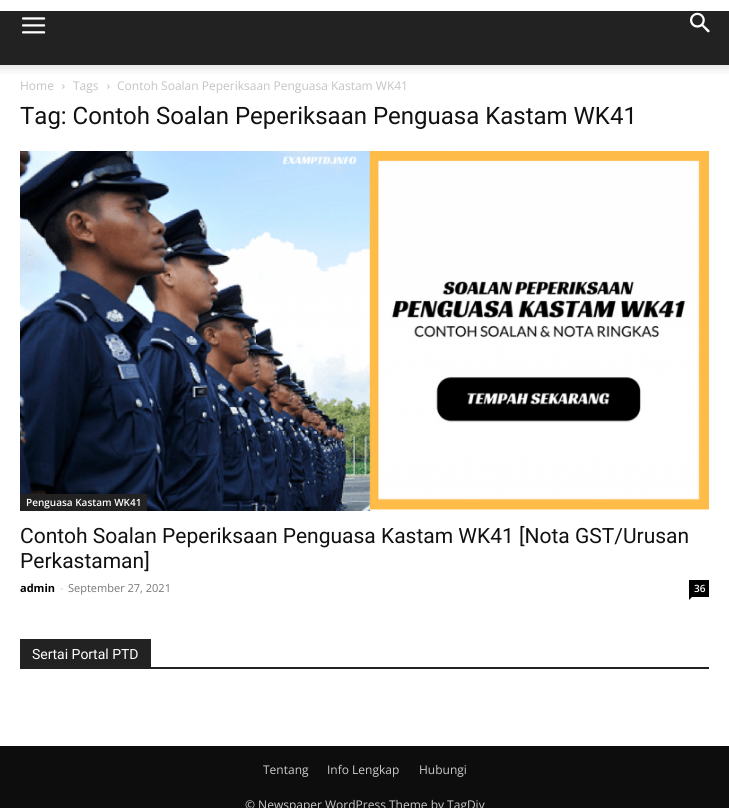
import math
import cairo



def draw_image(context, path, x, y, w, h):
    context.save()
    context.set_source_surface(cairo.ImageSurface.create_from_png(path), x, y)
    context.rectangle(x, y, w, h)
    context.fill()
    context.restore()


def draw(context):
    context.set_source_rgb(1, 1, 1)
    context.paint()
    context.set_source_rgb(34 / 255, 34 / 255, 34 / 255)
    context.rectangle(0, 11, 729, 54)
    context.fill()
    draw_image(context, "images/1.png", 22, 17, 24, 17)
    draw_image(context, "images/2.png", 690, 12, 20, 21)
    draw_image(context, "images/3.png", 0, 65, 729, 9)
    draw_image(context, "images/4.png", 62, 84, 3, 5)
    draw_image(context, "images/4.png", 107, 84, 3, 5)
    draw_image(context, "images/5.png", 20, 151, 689, 360)
    context.rectangle(20, 494, 127, 17)
    context.fill()
    context.set_source_rgb(0, 0, 0)
    context.rectangle(689, 580, 20, 17)
    context.fill()
    context.new_path()
    context.move_to(689, 597)
    context.line_to(692, 597)
    context.line_to(689, 600)
    context.close_path()
    context.fill()
    context.set_source_rgb(34 / 255, 34 / 255, 34 / 255)
    context.rectangle(20, 667, 689, 2)
    context.fill()
    context.rectangle(20, 639, 131, 28)
    context.fill()
    context.set_source_rgb(13 / 255, 13 / 255, 13 / 255)
    context.rectangle(0, 746, 729, 62)
    context.fill()
    context.select_font_face("Open Sans")
    context.set_font_size(12)
    context.set_source_rgb(195 / 255, 195 / 255, 195 / 255)
    context.move_to(20, 90)
    context.show_text("Home")
    context.move_to(73, 90)
    context.show_text("Tags")
    context.move_to(117, 90)
    context.show_text("Contoh Soalan Peperiksaan Penguasa Kastam WK41")
    context.select_font_face("Roboto")
    context.set_font_size(24)
    context.set_source_rgb(17 / 255, 17 / 255, 17 / 255)
    context.move_to(20, 124)
    context.show_text("Tag: Contoh Soalan Peperiksaan Penguasa Kastam WK41")
    context.select_font_face("Open Sans SemiBold")
    context.set_font_size(10)
    context.set_source_rgb(1, 1, 1)
    context.move_to(26, 506)
    context.show_text("Penguasa Kastam WK41")
    context.select_font_face("Roboto")
    context.set_font_size(21)
    context.set_source_rgb(17 / 255, 17 / 255, 17 / 255)
    context.move_to(20, 543)
    context.show_text("Contoh Soalan Peperiksaan Penguasa Kastam WK41 [Nota GST/Urusan")
    context.move_to(20, 568)
    context.show_text("Perkastaman]")
    context.select_font_face("Open Sans", cairo.FontSlant.NORMAL, cairo.FontWeight.BOLD)
    context.set_font_size(11)
    context.set_source_rgb(0, 0, 0)
    context.move_to(20, 592)
    context.show_text("admin")
    context.select_font_face("Open Sans")
    context.set_source_rgb(204 / 255, 204 / 255, 204 / 255)
    context.move_to(60, 592)
    context.show_text("-")
    context.set_source_rgb(118 / 255, 118 / 255, 118 / 255)
    context.move_to(68, 592)
    context.show_text("September 27, 2021")
    context.select_font_face("Open Sans SemiBold")
    context.set_font_size(10)
    context.set_source_rgb(1, 1, 1)
    context.move_to(694, 592)
    context.show_text("36")
    context.select_font_face("Roboto")
    context.set_font_size(14)
    context.move_to(32, 659)
    context.show_text("Sertai Portal PTD")
    context.select_font_face("Open Sans")
    context.set_font_size(12)
    context.set_source_rgb(204 / 255, 204 / 255, 204 / 255)
    context.move_to(263, 774)
    context.show_text("Tentang")
    context.move_to(327, 774)
    context.show_text("Info Lengkap")
    context.move_to(419, 774)
    context.show_text("Hubungi")
    context.move_to(245, 809)
    context.show_text("© Newspaper WordPress Theme by TagDiv")


surface = cairo.ImageSurface(cairo.Format.RGB24, 729, 808)
context = cairo.Context(surface)
options = cairo.FontOptions()
options.set_hint_metrics(cairo.HintMetrics.OFF)
options.set_hint_style(cairo.HintStyle.NONE)
context.set_font_options(options)
context.set_miter_limit(4)
draw(context)
surface.write_to_png("out.png")
